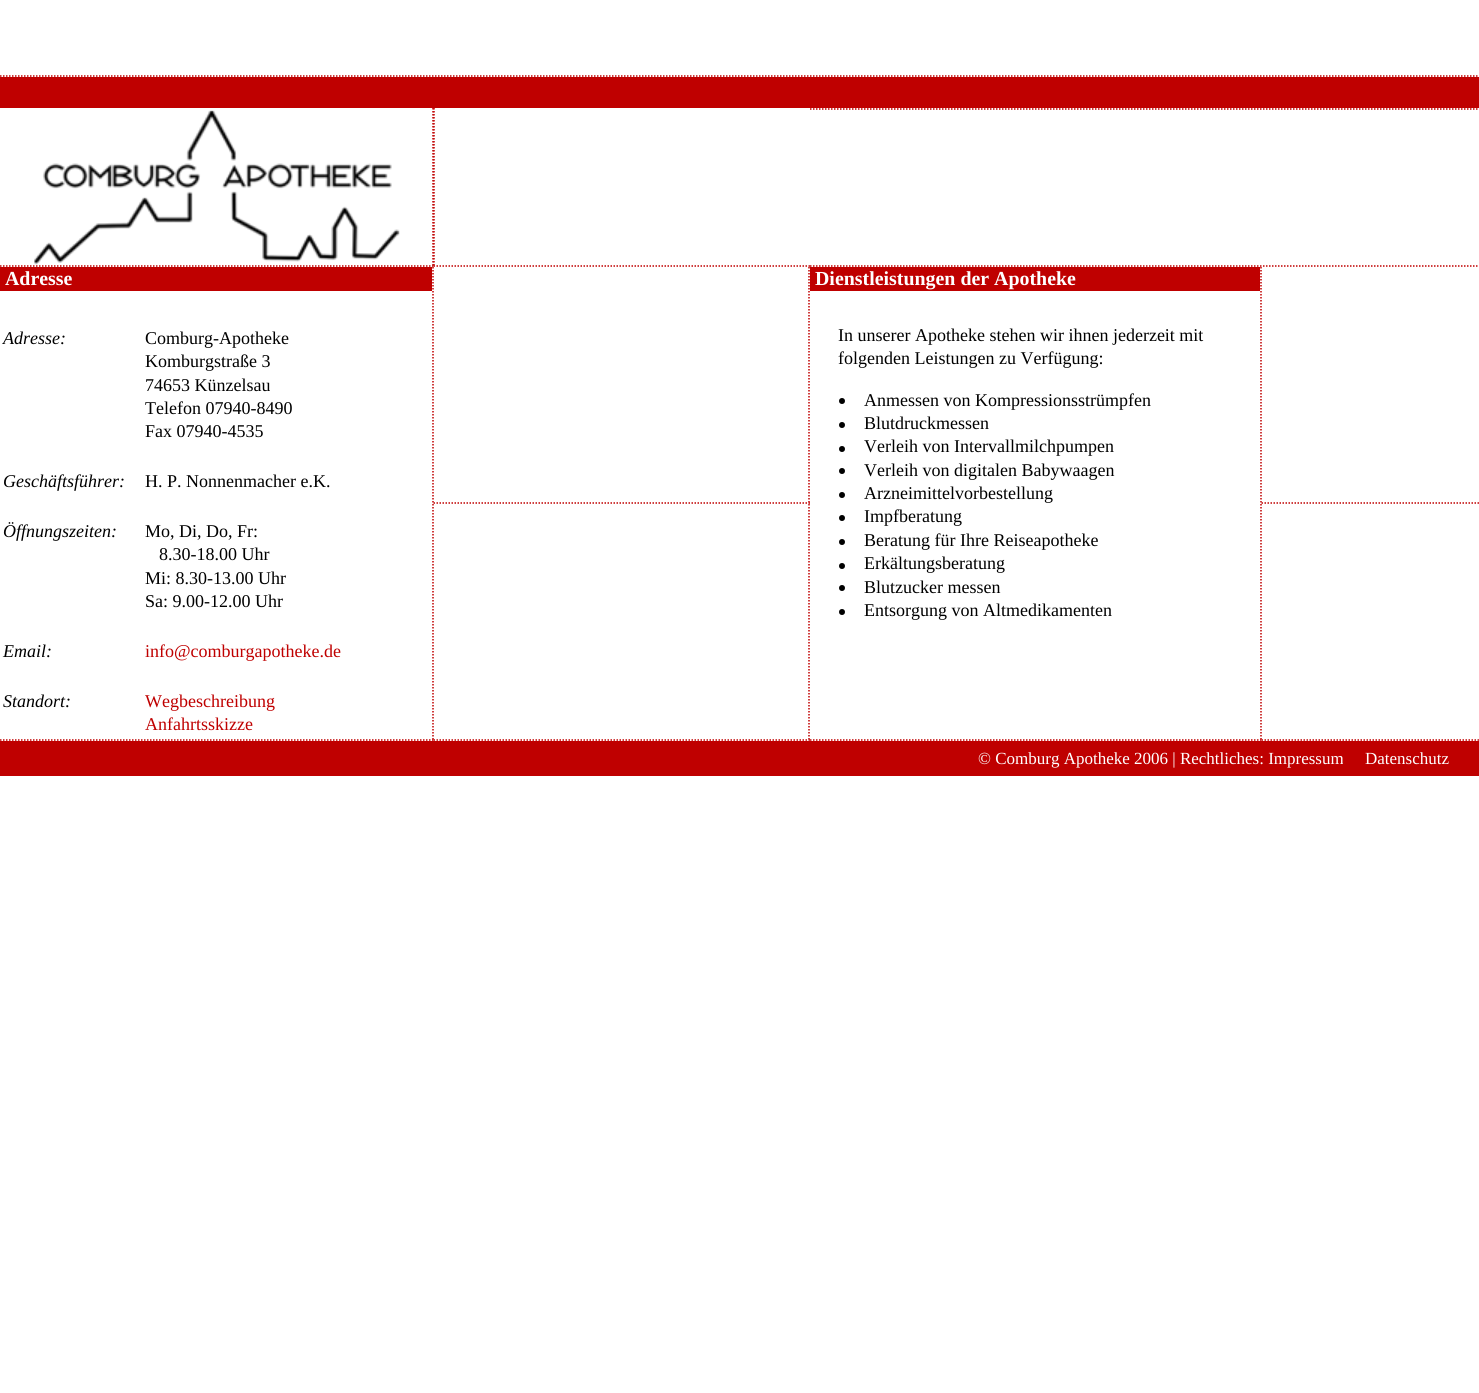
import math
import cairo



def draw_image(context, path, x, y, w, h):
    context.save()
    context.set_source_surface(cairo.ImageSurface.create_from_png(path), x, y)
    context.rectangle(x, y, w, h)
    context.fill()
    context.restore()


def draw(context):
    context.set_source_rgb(1, 1, 1)
    context.paint()
    context.new_path()
    context.move_to(0, 76)
    context.line_to(1479, 76)
    context.set_source_rgb(191 / 255, 0, 0)
    context.set_line_width(1.5)
    context.set_dash([1.5, 1.5])
    context.stroke()
    context.rectangle(0, 77, 1479, 31)
    context.fill()
    context.new_path()
    context.move_to(433, 108)
    context.line_to(433, 267)
    context.stroke()
    context.new_path()
    context.move_to(0, 266)
    context.line_to(433.5, 266)
    context.stroke()
    draw_image(context, "images/1.png", 34, 110, 366, 155)
    context.new_path()
    context.move_to(433.5, 266)
    context.line_to(810, 266)
    context.stroke()
    context.new_path()
    context.move_to(434, 108)
    context.line_to(434, 267)
    context.stroke()
    context.new_path()
    context.move_to(810, 109)
    context.line_to(1479, 109)
    context.stroke()
    context.new_path()
    context.move_to(810, 266)
    context.line_to(1479, 266)
    context.stroke()
    context.new_path()
    context.move_to(433, 267)
    context.line_to(433, 741)
    context.stroke()
    context.new_path()
    context.move_to(0, 740)
    context.line_to(433.5, 740)
    context.stroke()
    context.rectangle(0, 267, 432, 24)
    context.fill()
    context.new_path()
    context.move_to(809, 267)
    context.line_to(809, 504)
    context.stroke()
    context.new_path()
    context.move_to(433.5, 503)
    context.line_to(810, 503)
    context.stroke()
    context.new_path()
    context.move_to(1261, 267)
    context.line_to(1261, 741)
    context.stroke()
    context.new_path()
    context.move_to(810, 740)
    context.line_to(1261.5, 740)
    context.stroke()
    context.rectangle(810, 267, 450, 24)
    context.fill()
    context.set_source_rgb(0, 0, 0)
    context.arc(842, 401, 3, 0, 2 * math.pi)
    context.fill()
    context.arc(842, 425, 3, 0, 2 * math.pi)
    context.fill()
    context.arc(842, 449, 3, 0, 2 * math.pi)
    context.fill()
    context.arc(842, 471, 3, 0, 2 * math.pi)
    context.fill()
    context.arc(842, 495, 3, 0, 2 * math.pi)
    context.fill()
    context.arc(842, 518, 3, 0, 2 * math.pi)
    context.fill()
    context.arc(842, 542, 3, 0, 2 * math.pi)
    context.fill()
    context.arc(842, 566, 3, 0, 2 * math.pi)
    context.fill()
    context.arc(842, 588, 3, 0, 2 * math.pi)
    context.fill()
    context.arc(842, 612, 3, 0, 2 * math.pi)
    context.fill()
    context.new_path()
    context.move_to(1261.5, 503)
    context.line_to(1479, 503)
    context.set_source_rgb(191 / 255, 0, 0)
    context.stroke()
    context.new_path()
    context.move_to(809, 504)
    context.line_to(809, 741)
    context.stroke()
    context.new_path()
    context.move_to(433.5, 740)
    context.line_to(810, 740)
    context.stroke()
    context.new_path()
    context.move_to(1261.5, 740)
    context.line_to(1479, 740)
    context.stroke()
    context.rectangle(0, 741, 1479, 35)
    context.fill()
    context.select_font_face("Liberation Serif", cairo.FontSlant.NORMAL, cairo.FontWeight.BOLD)
    context.set_font_size(19.9)
    context.set_source_rgb(1, 1, 1)
    context.move_to(5, 285)
    context.show_text("Adresse")
    context.select_font_face("Liberation Serif", cairo.FontSlant.ITALIC)
    context.set_font_size(18)
    context.set_source_rgb(0, 0, 0)
    context.move_to(3, 344)
    context.show_text("Adresse:")
    context.select_font_face("Liberation Serif")
    context.move_to(145, 344)
    context.show_text("Comburg-Apotheke")
    context.move_to(145, 367)
    context.show_text("Komburgstraße 3")
    context.move_to(145, 391)
    context.show_text("74653 Künzelsau")
    context.move_to(145, 414)
    context.show_text("Telefon 07940-8490")
    context.move_to(145, 437)
    context.show_text("Fax 07940-4535")
    context.select_font_face("Liberation Serif", cairo.FontSlant.ITALIC)
    context.move_to(3, 487)
    context.show_text("Geschäftsführer:")
    context.select_font_face("Liberation Serif")
    context.move_to(145, 487)
    context.show_text("H. P. Nonnenmacher e.K.")
    context.select_font_face("Liberation Serif", cairo.FontSlant.ITALIC)
    context.move_to(3, 537)
    context.show_text("Öffnungszeiten:")
    context.select_font_face("Liberation Serif")
    context.move_to(145, 537)
    context.show_text("Mo, Di, Do, Fr:")
    context.move_to(159, 560)
    context.show_text("8.30-18.00 Uhr")
    context.move_to(145, 584)
    context.show_text("Mi: 8.30-13.00 Uhr")
    context.move_to(145, 607)
    context.show_text("Sa: 9.00-12.00 Uhr")
    context.select_font_face("Liberation Serif", cairo.FontSlant.ITALIC)
    context.move_to(3, 657)
    context.show_text("Email:")
    context.select_font_face("Liberation Serif")
    context.set_source_rgb(191 / 255, 0, 0)
    context.move_to(145, 657)
    context.show_text("info@comburgapotheke.de")
    context.select_font_face("Liberation Serif", cairo.FontSlant.ITALIC)
    context.set_source_rgb(0, 0, 0)
    context.move_to(3, 707)
    context.show_text("Standort:")
    context.select_font_face("Liberation Serif")
    context.set_source_rgb(191 / 255, 0, 0)
    context.move_to(145, 707)
    context.show_text("Wegbeschreibung")
    context.move_to(145, 730)
    context.show_text("Anfahrtsskizze")
    context.select_font_face("Liberation Serif", cairo.FontSlant.NORMAL, cairo.FontWeight.BOLD)
    context.set_font_size(19.9)
    context.set_source_rgb(1, 1, 1)
    context.move_to(815, 285)
    context.show_text("Dienstleistungen der Apotheke")
    context.select_font_face("Liberation Serif")
    context.set_font_size(18)
    context.set_source_rgb(0, 0, 0)
    context.move_to(838, 341)
    context.show_text("In unserer Apotheke stehen wir ihnen jederzeit mit")
    context.move_to(838, 364)
    context.show_text("folgenden Leistungen zu Verfügung:")
    context.move_to(864, 406)
    context.show_text("Anmessen von Kompressionsstrümpfen")
    context.move_to(864, 429)
    context.show_text("Blutdruckmessen")
    context.move_to(864, 452)
    context.show_text("Verleih von Intervallmilchpumpen")
    context.move_to(864, 476)
    context.show_text("Verleih von digitalen Babywaagen")
    context.move_to(864, 499)
    context.show_text("Arzneimittelvorbestellung")
    context.move_to(864, 522)
    context.show_text("Impfberatung")
    context.move_to(864, 546)
    context.show_text("Beratung für Ihre Reiseapotheke")
    context.move_to(864, 569)
    context.show_text("Erkältungsberatung")
    context.move_to(864, 593)
    context.show_text("Blutzucker messen")
    context.move_to(864, 616)
    context.show_text("Entsorgung von Altmedikamenten")
    context.set_font_size(17)
    context.set_source_rgb(1, 1, 1)
    context.move_to(978, 764)
    context.show_text("© Comburg Apotheke 2006 | Rechtliches: Impressum")
    context.move_to(1365, 764)
    context.show_text("Datenschutz")


surface = cairo.ImageSurface(cairo.Format.RGB24, 1479, 1393)
context = cairo.Context(surface)
options = cairo.FontOptions()
options.set_hint_metrics(cairo.HintMetrics.OFF)
options.set_hint_style(cairo.HintStyle.NONE)
context.set_font_options(options)
context.set_miter_limit(4)
draw(context)
surface.write_to_png("out.png")
